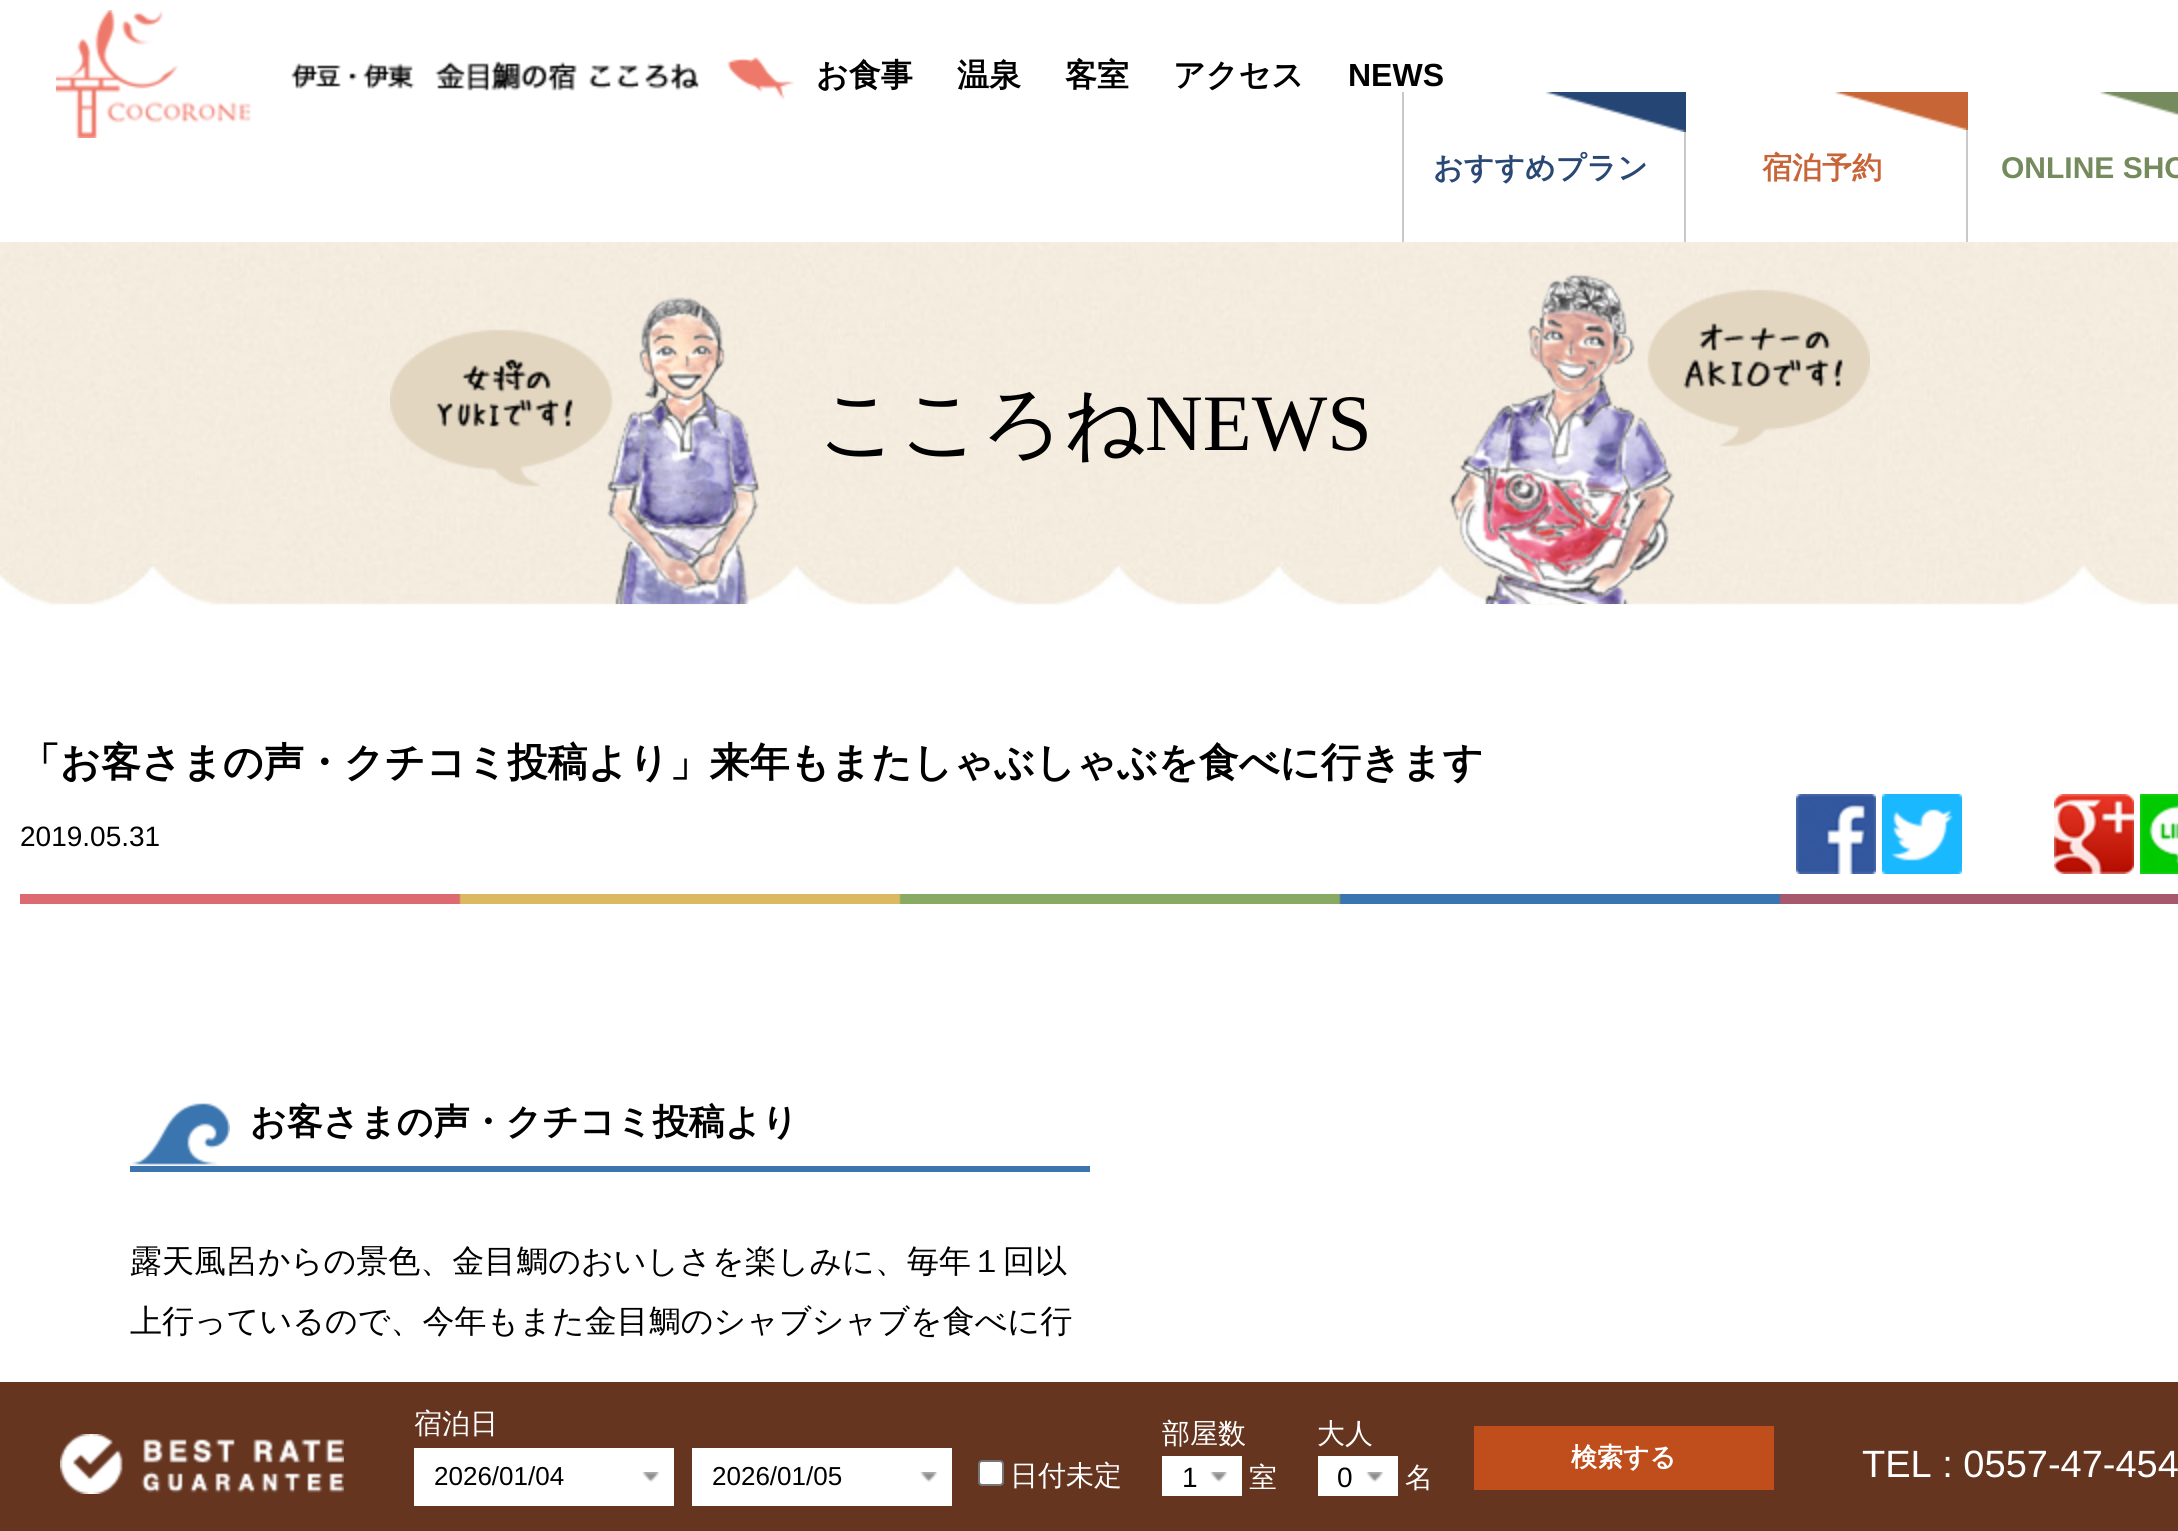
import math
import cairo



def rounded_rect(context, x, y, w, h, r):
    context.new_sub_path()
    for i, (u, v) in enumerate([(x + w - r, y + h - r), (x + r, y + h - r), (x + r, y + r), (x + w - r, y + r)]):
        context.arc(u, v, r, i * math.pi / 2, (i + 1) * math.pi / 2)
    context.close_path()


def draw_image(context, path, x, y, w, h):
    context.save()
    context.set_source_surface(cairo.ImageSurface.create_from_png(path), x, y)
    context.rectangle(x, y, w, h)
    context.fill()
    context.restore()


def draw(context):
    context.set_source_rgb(1, 1, 1)
    context.paint()
    draw_image(context, "images/1.png", 56, 10, 738, 128)
    context.set_source_rgb(201 / 255, 201 / 255, 201 / 255)
    context.rectangle(1402, 92, 2, 150)
    context.fill()
    context.rectangle(1684, 129, 2, 113)
    context.fill()
    draw_image(context, "images/2.png", 1546, 92, 140, 40)
    context.rectangle(1966, 127, 2, 115)
    context.fill()
    draw_image(context, "images/3.png", 1834, 92, 134, 38)
    draw_image(context, "images/4.png", 2100, 92, 78, 24)
    draw_image(context, "images/5.png", 0, 242, 2178, 364)
    draw_image(context, "images/6.png", 390, 297, 371, 307)
    draw_image(context, "images/7.png", 1449, 274, 421, 330)
    draw_image(context, "images/8.png", 20, 894, 2158, 10)
    draw_image(context, "images/9.png", 1796, 794, 80, 80)
    draw_image(context, "images/10.png", 1882, 794, 80, 80)
    draw_image(context, "images/11.png", 2054, 794, 80, 80)
    draw_image(context, "images/12.png", 2140, 794, 38, 80)
    context.set_source_rgb(61 / 255, 116 / 255, 174 / 255)
    context.rectangle(130, 1166, 960, 6)
    context.fill()
    draw_image(context, "images/13.png", 130, 1103, 100, 63)
    context.set_source_rgb(102 / 255, 53 / 255, 32 / 255)
    context.rectangle(0, 1382, 2178, 149)
    context.fill()
    draw_image(context, "images/14.png", 60, 1434, 284, 60)
    context.set_source_rgb(1, 1, 1)
    context.rectangle(414, 1448, 260, 58)
    context.fill()
    draw_image(context, "images/15.png", 642, 1472, 18, 10)
    context.rectangle(692, 1448, 260, 58)
    context.fill()
    draw_image(context, "images/15.png", 920, 1472, 18, 10)
    rounded_rect(context, 979, 1461, 24, 24, 3)
    context.fill_preserve()
    context.set_source_rgb(118 / 255, 118 / 255, 118 / 255)
    context.stroke()
    context.set_source_rgb(1, 1, 1)
    context.rectangle(1162, 1456, 80, 40)
    context.fill()
    draw_image(context, "images/15.png", 1210, 1472, 18, 10)
    context.rectangle(1318, 1456, 80, 40)
    context.fill()
    draw_image(context, "images/15.png", 1366, 1472, 18, 10)
    context.set_source_rgb(191 / 255, 78 / 255, 28 / 255)
    context.rectangle(1474, 1426, 300, 64)
    context.fill()
    context.select_font_face("WenQuanYi Zen Hei", cairo.FontSlant.NORMAL, cairo.FontWeight.BOLD)
    context.set_font_size(32)
    context.set_source_rgb(0, 0, 0)
    context.move_to(816, 86)
    context.show_text("お食事")
    context.move_to(957, 86)
    context.show_text("温泉")
    context.move_to(1065, 86)
    context.show_text("客室")
    context.move_to(1173, 86)
    context.show_text("アクセス")
    context.select_font_face("Liberation Sans", cairo.FontSlant.NORMAL, cairo.FontWeight.BOLD)
    context.move_to(1348, 86)
    context.show_text("NEWS")
    context.select_font_face("WenQuanYi Zen Hei", cairo.FontSlant.NORMAL, cairo.FontWeight.BOLD)
    context.set_font_size(30)
    context.set_source_rgb(42 / 255, 72 / 255, 116 / 255)
    context.move_to(1433, 178)
    context.show_text("おすすめプラン")
    context.set_source_rgb(199 / 255, 101 / 255, 57 / 255)
    context.move_to(1762, 178)
    context.show_text("宿泊予約")
    context.select_font_face("Liberation Sans", cairo.FontSlant.NORMAL, cairo.FontWeight.BOLD)
    context.set_source_rgb(117 / 255, 138 / 255, 93 / 255)
    context.move_to(2001, 178)
    context.show_text("ONLINE SHO")
    context.select_font_face("WenQuanYi Zen Hei Medium")
    context.set_font_size(80)
    context.set_source_rgb(0, 0, 0)
    context.move_to(818, 450)
    context.show_text("こころね")
    context.select_font_face("Liberation Serif")
    context.move_to(1145, 450)
    context.show_text("NEWS")
    context.select_font_face("WenQuanYi Zen Hei", cairo.FontSlant.NORMAL, cairo.FontWeight.BOLD)
    context.set_font_size(40)
    context.move_to(20, 776)
    context.show_text("「お客さまの声・クチコミ投稿より」来年もまたしゃぶしゃぶを食べに行きます")
    context.select_font_face("Liberation Sans")
    context.set_font_size(28)
    context.move_to(20, 846)
    context.show_text("2019.05.31")
    context.select_font_face("WenQuanYi Zen Hei", cairo.FontSlant.NORMAL, cairo.FontWeight.BOLD)
    context.set_font_size(36)
    context.move_to(250, 1134)
    context.show_text("お客さまの声・クチコミ投稿より")
    context.select_font_face("WenQuanYi Zen Hei Medium")
    context.set_font_size(32)
    context.move_to(130, 1272)
    context.show_text("露天風呂からの景色、金目鯛のおいしさを楽しみに、毎年１回以")
    context.move_to(130, 1332)
    context.show_text("上行っているので、今年もまた金目鯛のシャブシャブを食べに行")
    context.set_font_size(28)
    context.set_source_rgb(1, 1, 1)
    context.move_to(414, 1433)
    context.show_text("宿泊日")
    context.select_font_face("Liberation Sans")
    context.set_font_size(26)
    context.set_source_rgb(0, 0, 0)
    context.move_to(434, 1485)
    context.show_text("2026/01/04")
    context.move_to(712, 1485)
    context.show_text("2026/01/05")
    context.select_font_face("WenQuanYi Zen Hei Medium")
    context.set_font_size(28)
    context.set_source_rgb(1, 1, 1)
    context.move_to(1010, 1485)
    context.show_text("日付未定")
    context.move_to(1162, 1443)
    context.show_text("部屋数")
    context.select_font_face("Liberation Sans")
    context.set_source_rgb(0, 0, 0)
    context.move_to(1182, 1487)
    context.show_text("1")
    context.select_font_face("WenQuanYi Zen Hei Medium")
    context.set_source_rgb(1, 1, 1)
    context.move_to(1249, 1487)
    context.show_text("室")
    context.move_to(1317, 1443)
    context.show_text("大人")
    context.select_font_face("Liberation Sans")
    context.set_source_rgb(0, 0, 0)
    context.move_to(1337, 1487)
    context.show_text("0")
    context.select_font_face("WenQuanYi Zen Hei Medium")
    context.set_source_rgb(1, 1, 1)
    context.move_to(1405, 1487)
    context.show_text("名")
    context.select_font_face("WenQuanYi Zen Hei", cairo.FontSlant.NORMAL, cairo.FontWeight.BOLD)
    context.set_font_size(26)
    context.move_to(1571, 1466)
    context.show_text("検索する")
    context.select_font_face("Liberation Sans")
    context.set_font_size(38)
    context.move_to(1862, 1477)
    context.show_text("TEL : 0557-47-454")


surface = cairo.ImageSurface(cairo.Format.RGB24, 2178, 1531)
context = cairo.Context(surface)
options = cairo.FontOptions()
options.set_hint_metrics(cairo.HintMetrics.OFF)
options.set_hint_style(cairo.HintStyle.NONE)
context.set_font_options(options)
context.set_miter_limit(4)
draw(context)
surface.write_to_png("out.png")
